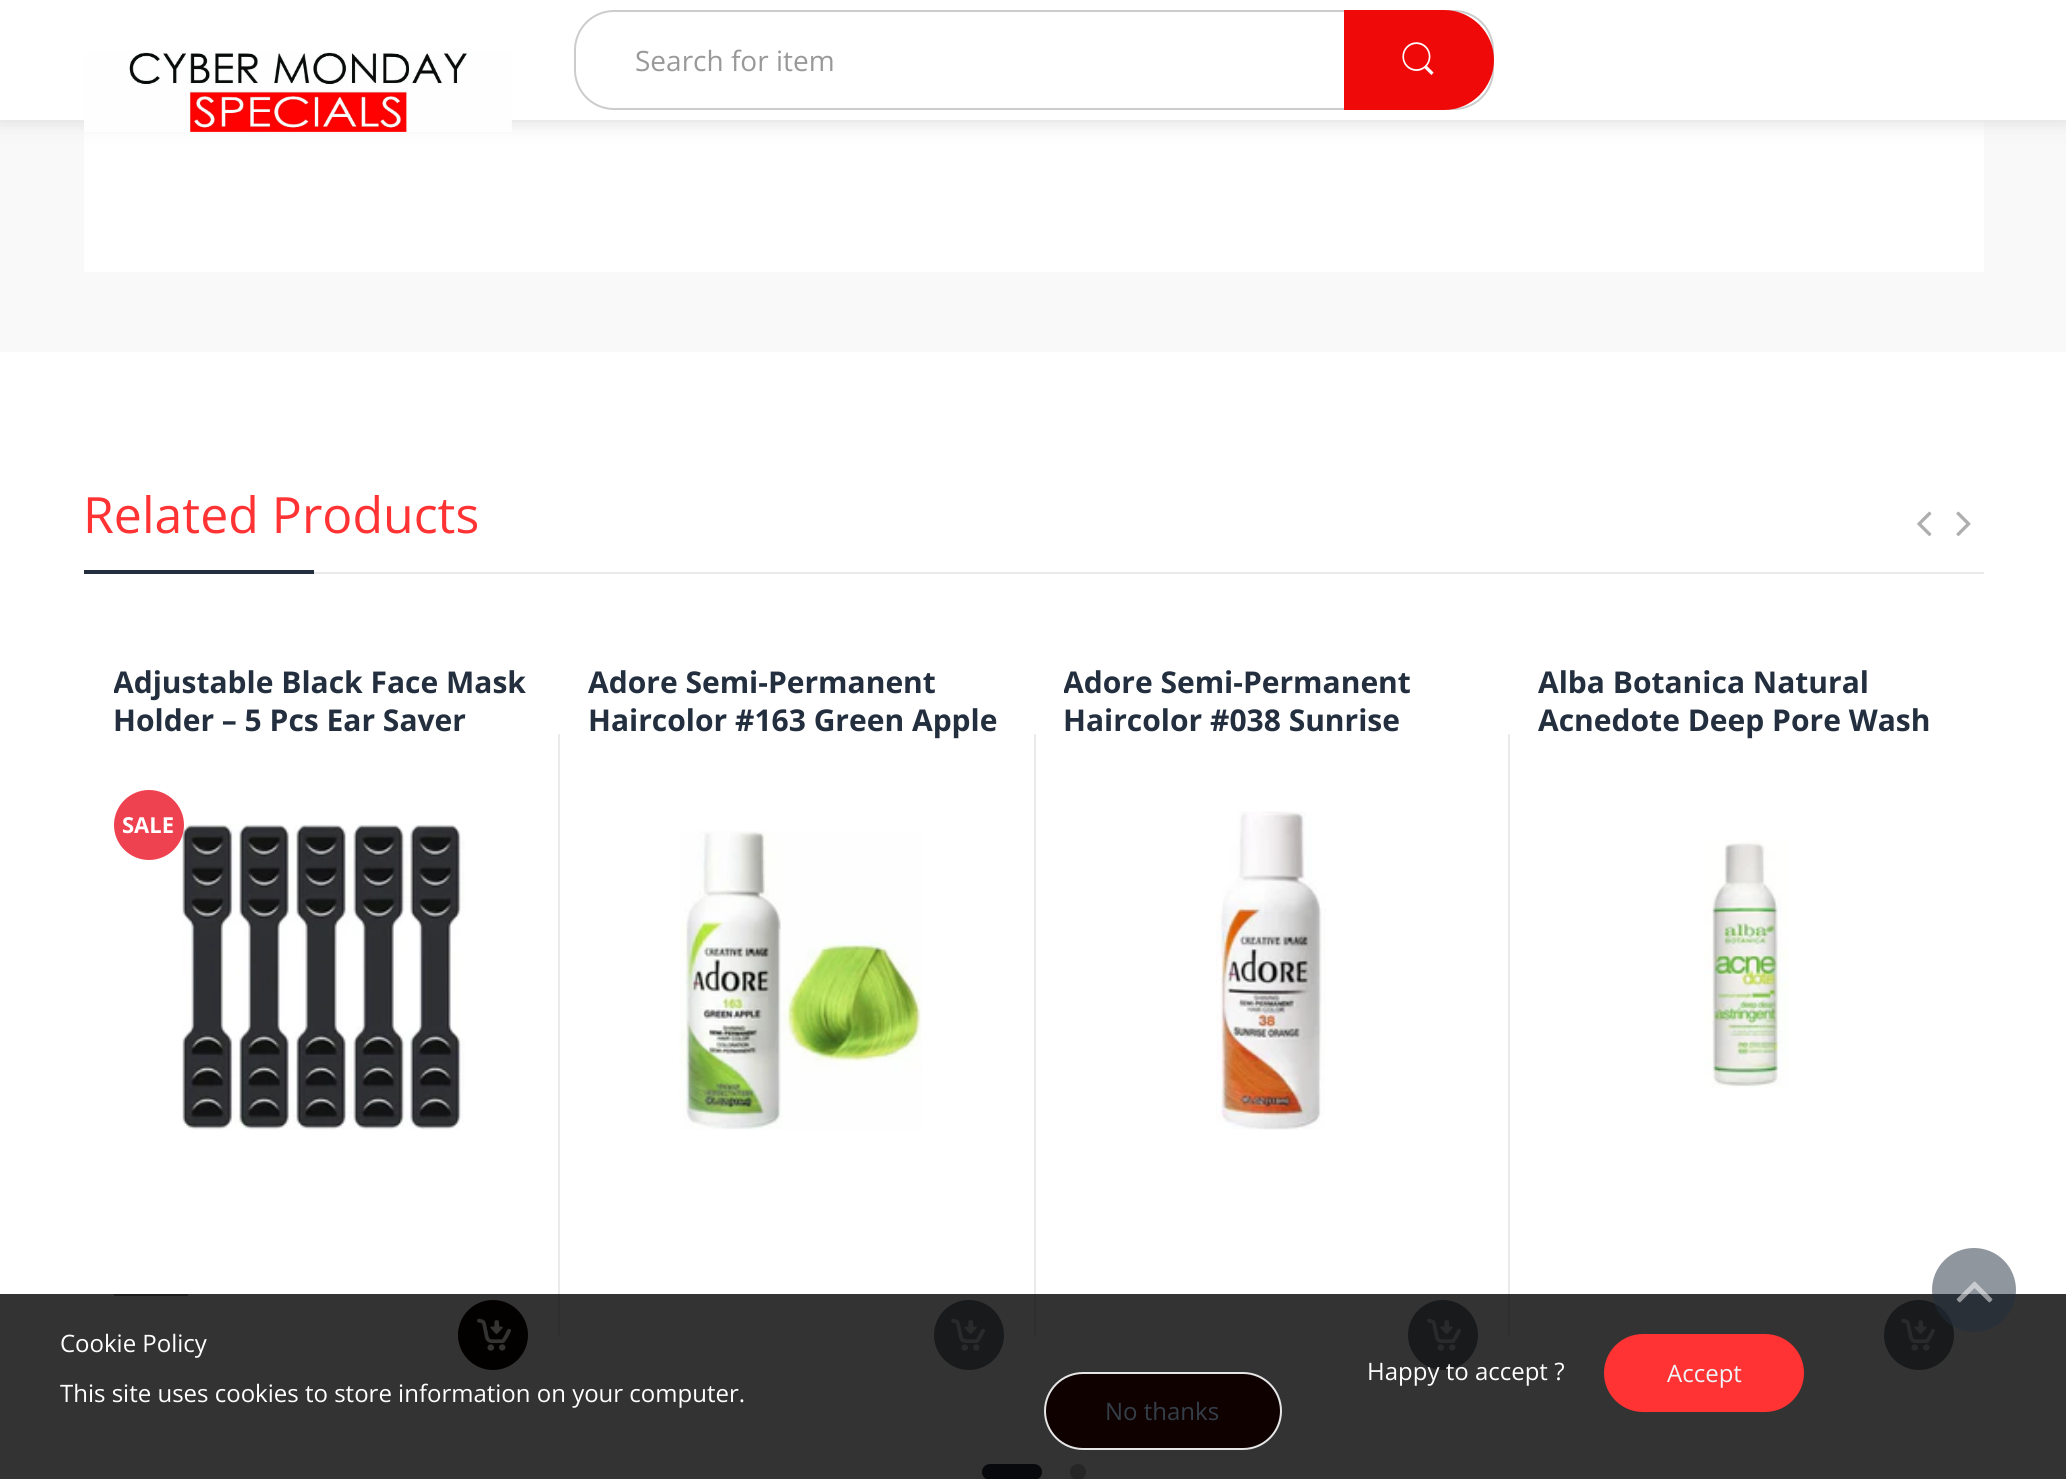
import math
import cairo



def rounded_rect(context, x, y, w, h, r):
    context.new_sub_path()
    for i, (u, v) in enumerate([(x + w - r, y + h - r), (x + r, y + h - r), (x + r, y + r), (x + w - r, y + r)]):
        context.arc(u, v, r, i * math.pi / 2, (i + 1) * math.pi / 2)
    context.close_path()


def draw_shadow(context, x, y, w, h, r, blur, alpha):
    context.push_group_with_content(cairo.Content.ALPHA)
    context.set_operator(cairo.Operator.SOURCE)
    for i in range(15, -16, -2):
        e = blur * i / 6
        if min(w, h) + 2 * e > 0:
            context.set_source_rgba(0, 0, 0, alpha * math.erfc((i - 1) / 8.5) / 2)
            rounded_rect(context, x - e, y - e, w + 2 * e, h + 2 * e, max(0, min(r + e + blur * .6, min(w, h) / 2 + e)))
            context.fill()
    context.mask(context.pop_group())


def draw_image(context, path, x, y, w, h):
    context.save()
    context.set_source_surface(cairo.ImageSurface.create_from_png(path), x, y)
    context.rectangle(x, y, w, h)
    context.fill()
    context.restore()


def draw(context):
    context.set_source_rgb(1, 1, 1)
    context.paint()
    context.set_source_rgb(249 / 255, 249 / 255, 249 / 255)
    context.rectangle(0, 122, 2066, 230)
    context.fill()
    context.set_source_rgb(1, 1, 1)
    context.rectangle(84, 122, 1900, 150)
    context.fill()
    context.set_source_rgb(221 / 255, 221 / 255, 221 / 255)
    draw_shadow(context, 0, 0, 2066, 122, 0, 10, 1)
    context.set_source_rgb(1, 1, 1)
    context.rectangle(0, 0, 2066, 120)
    context.fill()
    context.set_source_rgb(234 / 255, 234 / 255, 234 / 255)
    context.rectangle(0, 120, 2066, 2)
    context.fill()
    draw_image(context, "images/1.png", 84, 52, 428, 80)
    rounded_rect(context, 575, 11, 918, 98, 39)
    context.set_source_rgb(204 / 255, 204 / 255, 204 / 255)
    context.stroke()
    context.set_source_rgb(239 / 255, 9 / 255, 9 / 255)
    context.new_path()
    context.move_to(1344, 10)
    context.line_to(1444, 10)
    context.curve_to(1471.5, 10, 1494, 32.5, 1494, 60)
    context.curve_to(1494, 87.5, 1471.5, 110, 1444, 110)
    context.line_to(1344, 110)
    context.close_path()
    context.fill()
    draw_image(context, "images/2.png", 1402, 42, 32, 33)
    context.set_source_rgb(234 / 255, 234 / 255, 234 / 255)
    context.rectangle(314, 572, 1670, 2)
    context.fill()
    context.set_source_rgb(35 / 255, 47 / 255, 62 / 255)
    context.rectangle(84, 570, 230, 4)
    context.fill()
    draw_image(context, "images/3.png", 1917, 511, 15, 25)
    draw_image(context, "images/4.png", 1956, 511, 15, 25)
    rounded_rect(context, 982, 1464, 60, 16, 8)
    context.fill()
    context.set_source_rgb(188 / 255, 188 / 255, 188 / 255)
    context.arc(1078, 1472, 8, 0, 2 * math.pi)
    context.fill()
    draw_image(context, "images/5.png", 182, 824, 283, 306)
    context.set_source_rgb(238 / 255, 66 / 255, 80 / 255)
    context.arc(149, 825, 35, 0, 2 * math.pi)
    context.fill()
    context.set_source_rgb(150 / 255, 144 / 255, 144 / 255)
    context.rectangle(114, 1294, 74, 2)
    context.fill()
    context.set_source_rgb(16 / 255, 1 / 255, 1 / 255)
    context.arc(493, 1335, 35, 0, 2 * math.pi)
    context.fill()
    draw_image(context, "images/6.png", 477, 1318, 34, 33)
    draw_image(context, "images/7.png", 679, 831, 243, 299)
    context.set_source_rgb(234 / 255, 234 / 255, 234 / 255)
    context.rectangle(558, 734, 2, 602)
    context.fill()
    context.set_source_rgb(122 / 255, 130 / 255, 136 / 255)
    context.arc(969, 1335, 35, 0, 2 * math.pi)
    context.fill()
    draw_image(context, "images/8.png", 951, 1318, 34, 33)
    draw_image(context, "images/9.png", 1216, 811, 110, 319)
    context.set_source_rgb(234 / 255, 234 / 255, 234 / 255)
    context.rectangle(1034, 734, 2, 602)
    context.fill()
    context.set_source_rgb(122 / 255, 130 / 255, 136 / 255)
    context.arc(1443, 1335, 35, 0, 2 * math.pi)
    context.fill()
    draw_image(context, "images/8.png", 1427, 1318, 34, 33)
    draw_image(context, "images/10.png", 1704, 839, 84, 249)
    context.set_source_rgb(234 / 255, 234 / 255, 234 / 255)
    context.rectangle(1508, 734, 2, 602)
    context.fill()
    context.set_source_rgb(122 / 255, 130 / 255, 136 / 255)
    context.arc(1919, 1335, 35, 0, 2 * math.pi)
    context.fill()
    draw_image(context, "images/8.png", 1901, 1318, 34, 33)
    context.set_source_rgba(0, 0, 0, 0.8)
    context.rectangle(0, 1294, 2066, 185)
    context.fill()
    context.set_source_rgba(35 / 255, 47 / 255, 62 / 255, 0.5)
    context.arc(1974, 1290, 42, 0, 2 * math.pi)
    context.fill()
    draw_image(context, "images/11.png", 1956, 1281, 37, 22)
    context.set_source_rgb(1, 51 / 255, 51 / 255)
    rounded_rect(context, 1605, 1335, 198, 76, 38)
    context.fill_preserve()
    context.stroke()
    context.set_source_rgb(16 / 255, 1 / 255, 1 / 255)
    rounded_rect(context, 1045, 1373, 236, 76, 38)
    context.fill_preserve()
    context.set_source_rgb(230 / 255, 230 / 255, 230 / 255)
    context.stroke()
    context.select_font_face("Open Sans")
    context.set_font_size(28)
    context.set_source_rgb(153 / 255, 153 / 255, 153 / 255)
    context.move_to(635, 71)
    context.show_text("Search for item")
    context.set_font_size(50)
    context.set_source_rgb(1, 51 / 255, 51 / 255)
    context.move_to(83, 533)
    context.show_text("Related Products")
    context.save()
    context.rectangle(114, 664, 414, 76)
    context.clip()
    context.select_font_face("Open Sans", cairo.FontSlant.NORMAL, cairo.FontWeight.BOLD)
    context.set_font_size(30)
    context.set_source_rgb(35 / 255, 47 / 255, 62 / 255)
    context.move_to(113, 693)
    context.show_text("Adjustable Black Face Mask")
    context.restore()
    context.select_font_face("Open Sans", cairo.FontSlant.NORMAL, cairo.FontWeight.BOLD)
    context.set_font_size(30)
    context.set_source_rgb(35 / 255, 47 / 255, 62 / 255)
    context.move_to(113, 731)
    context.show_text("Holder – 5 Pcs Ear Saver")
    context.set_font_size(22)
    context.set_source_rgb(1, 1, 1)
    context.move_to(122, 833)
    context.show_text("SALE")
    context.set_font_size(30)
    context.set_source_rgb(35 / 255, 47 / 255, 62 / 255)
    context.move_to(588, 693)
    context.show_text("Adore Semi-Permanent")
    context.move_to(588, 731)
    context.show_text("Haircolor #163 Green Apple")
    context.save()
    context.rectangle(1064, 664, 414, 76)
    context.clip()
    context.move_to(1063, 693)
    context.show_text("Adore Semi-Permanent")
    context.restore()
    context.move_to(1063, 731)
    context.show_text("Haircolor #038 Sunrise")
    context.move_to(1538, 693)
    context.show_text("Alba Botanica Natural")
    context.move_to(1538, 731)
    context.show_text("Acnedote Deep Pore Wash")
    context.select_font_face("Open Sans")
    context.set_font_size(24)
    context.set_source_rgb(1, 1, 1)
    context.move_to(60, 1352)
    context.show_text("Cookie Policy")
    context.move_to(1367, 1380)
    context.show_text("Happy to accept ?")
    context.set_source_rgb(238 / 255, 244 / 255, 247 / 255)
    context.move_to(1667, 1382)
    context.show_text("Accept")
    context.set_source_rgb(1, 1, 1)
    context.move_to(60, 1402)
    context.show_text("This site uses cookies to store information on your computer.")
    context.set_source_rgb(51 / 255, 62 / 255, 72 / 255)
    context.move_to(1105, 1420)
    context.show_text("No thanks")


surface = cairo.ImageSurface(cairo.Format.RGB24, 2066, 1479)
context = cairo.Context(surface)
options = cairo.FontOptions()
options.set_hint_metrics(cairo.HintMetrics.OFF)
options.set_hint_style(cairo.HintStyle.NONE)
context.set_font_options(options)
context.set_miter_limit(4)
draw(context)
surface.write_to_png("out.png")
